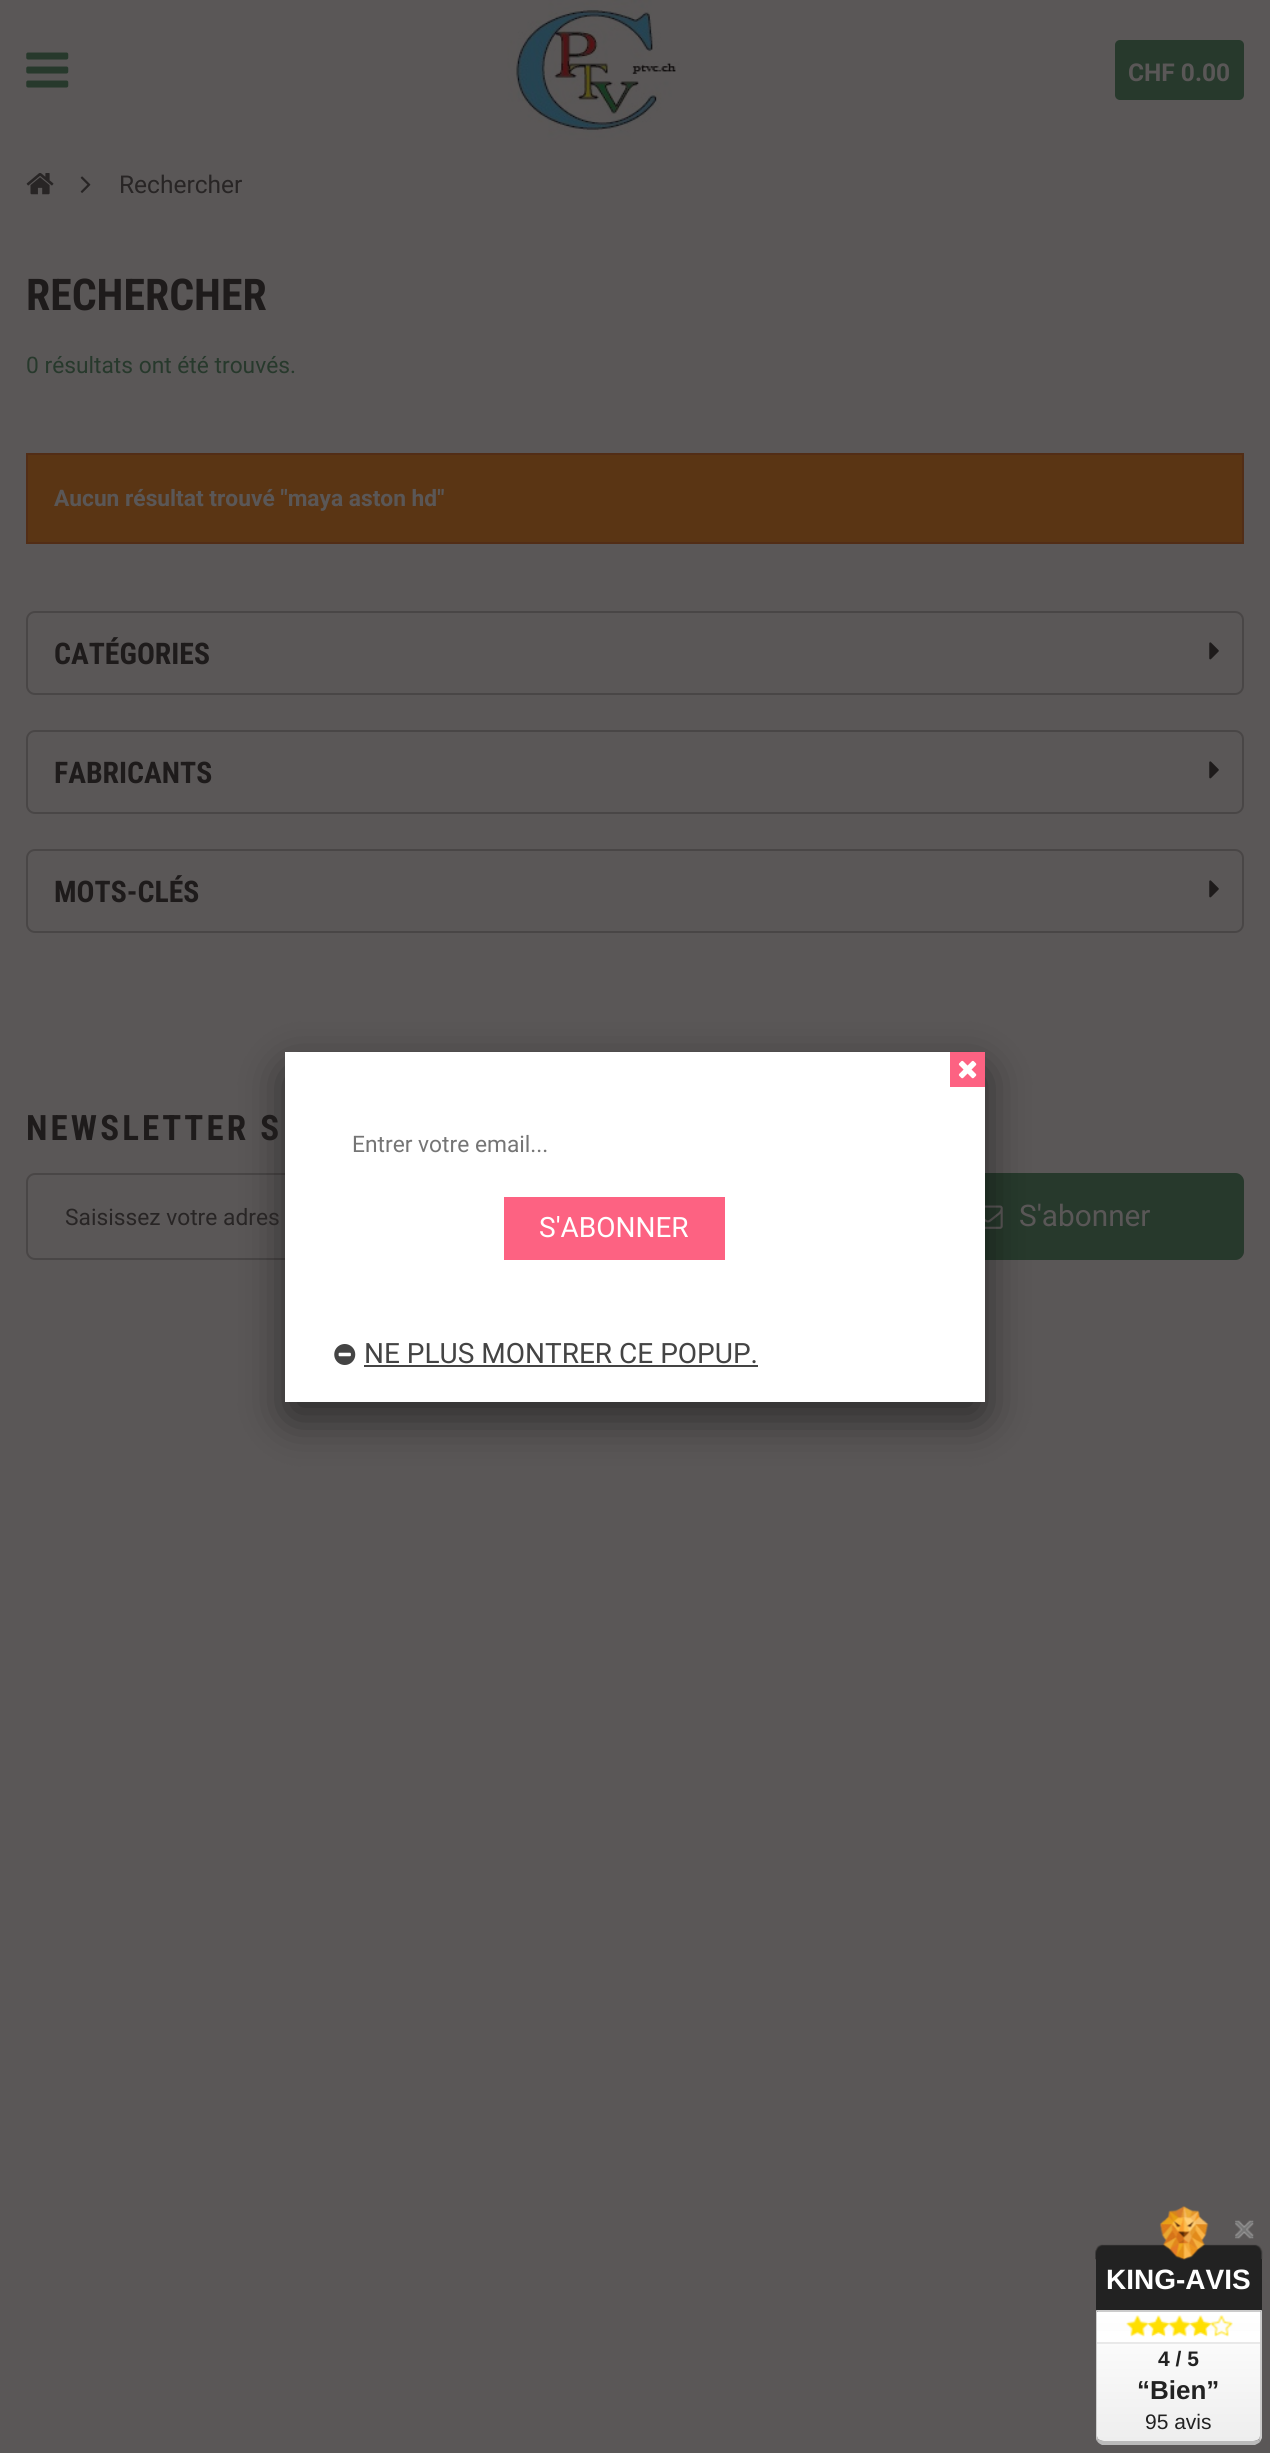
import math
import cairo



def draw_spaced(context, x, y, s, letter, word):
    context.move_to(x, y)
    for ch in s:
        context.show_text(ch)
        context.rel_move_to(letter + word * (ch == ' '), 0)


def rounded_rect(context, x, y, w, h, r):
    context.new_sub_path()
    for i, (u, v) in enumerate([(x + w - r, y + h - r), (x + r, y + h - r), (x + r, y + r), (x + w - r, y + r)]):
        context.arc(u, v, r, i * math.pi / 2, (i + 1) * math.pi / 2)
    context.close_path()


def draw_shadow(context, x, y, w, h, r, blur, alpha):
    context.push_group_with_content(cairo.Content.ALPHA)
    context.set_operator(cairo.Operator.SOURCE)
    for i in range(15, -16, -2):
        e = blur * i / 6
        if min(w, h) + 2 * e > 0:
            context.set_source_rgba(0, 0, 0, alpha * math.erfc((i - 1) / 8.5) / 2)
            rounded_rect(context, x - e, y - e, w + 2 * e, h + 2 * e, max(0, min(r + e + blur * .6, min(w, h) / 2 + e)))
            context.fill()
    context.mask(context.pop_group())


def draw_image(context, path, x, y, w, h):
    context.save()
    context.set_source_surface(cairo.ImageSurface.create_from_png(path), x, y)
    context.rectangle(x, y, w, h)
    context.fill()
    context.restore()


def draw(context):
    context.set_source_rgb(90 / 255, 87 / 255, 87 / 255)
    context.paint()
    draw_image(context, "images/1.png", 26, 52, 43, 36)
    draw_image(context, "images/2.png", 507, 0, 173, 140)
    context.set_source_rgb(39 / 255, 57 / 255, 44 / 255)
    rounded_rect(context, 1115, 40, 129, 60, 5)
    context.fill()
    draw_image(context, "images/3.png", 26, 173, 28, 22)
    draw_image(context, "images/4.png", 80, 176, 11, 17)
    context.set_source_rgb(90 / 255, 53 / 255, 20 / 255)
    context.rectangle(27, 454, 1216, 89)
    context.fill_preserve()
    context.set_source_rgb(82 / 255, 45 / 255, 22 / 255)
    context.stroke()
    rounded_rect(context, 27, 612, 1216, 82, 8)
    context.set_source_rgb(73 / 255, 70 / 255, 70 / 255)
    context.stroke()
    draw_image(context, "images/5.png", 1209, 642, 10, 18)
    rounded_rect(context, 27, 731, 1216, 82, 8)
    context.stroke()
    draw_image(context, "images/5.png", 1209, 761, 10, 18)
    rounded_rect(context, 27, 850, 1216, 82, 8)
    context.stroke()
    draw_image(context, "images/5.png", 1209, 880, 10, 18)
    rounded_rect(context, 27, 1174, 1216, 85, 8)
    context.stroke()
    context.set_source_rgb(39 / 255, 57 / 255, 44 / 255)
    context.new_path()
    context.move_to(879, 1173)
    context.line_to(1235, 1173)
    context.curve_to(1240, 1173, 1244, 1177, 1244, 1182)
    context.line_to(1244, 1251)
    context.curve_to(1244, 1256, 1240, 1260, 1235, 1260)
    context.line_to(879, 1260)
    context.close_path()
    context.fill()
    draw_image(context, "images/6.png", 985, 1205, 18, 24)
    context.set_source_rgb(0, 0, 0)
    draw_shadow(context, 285, 1069, 700, 350, 7, 22, 0.5)
    context.set_source_rgb(1, 1, 1)
    context.rectangle(285, 1052, 700, 350)
    context.fill()
    context.set_source_rgb(253 / 255, 98 / 255, 130 / 255)
    context.rectangle(950, 1052, 35, 35)
    context.fill()
    draw_image(context, "images/7.png", 958, 1060, 19, 19)
    context.rectangle(504, 1197, 221, 63)
    context.fill()
    draw_image(context, "images/8.png", 334, 1344, 22, 21)
    context.set_source_rgb(68 / 255, 68 / 255, 68 / 255)
    context.rectangle(364, 1365, 394, 2)
    context.fill()
    context.set_source_rgb(34 / 255, 34 / 255, 34 / 255)
    context.rectangle(1096, 2259, 166, 51)
    context.fill()
    draw_image(context, "images/9.png", 1095, 2206, 168, 54)
    gradient = cairo.LinearGradient(1179, 2312, 1179, 2441)
    gradient.add_color_stop_rgba(0, 1, 1, 1, 1)
    gradient.add_color_stop_rgba(1, 238 / 255, 238 / 255, 238 / 255, 1)
    context.set_source(gradient)
    context.new_path()
    context.move_to(1097, 2312)
    context.line_to(1260, 2312)
    context.line_to(1260, 2436)
    context.curve_to(1260, 2439, 1257, 2441, 1253, 2441)
    context.line_to(1104, 2441)
    context.curve_to(1100, 2441, 1097, 2439, 1097, 2436)
    context.close_path()
    context.fill()
    context.set_source_rgb(204 / 255, 204 / 255, 204 / 255)
    context.new_path()
    context.move_to(1096, 2310)
    context.line_to(1098, 2312)
    context.line_to(1260, 2312)
    context.line_to(1262, 2310)
    context.close_path()
    context.fill()
    context.new_path()
    context.move_to(1262, 2310)
    context.line_to(1262, 2438)
    context.line_to(1260, 2442)
    context.line_to(1259, 2439)
    context.line_to(1260, 2436)
    context.line_to(1260, 2312)
    context.close_path()
    context.fill()
    context.set_source_rgb(187 / 255, 187 / 255, 187 / 255)
    context.new_path()
    context.move_to(1102, 2445)
    context.curve_to(1100, 2444, 1098, 2443, 1097, 2441)
    context.line_to(1098, 2439)
    context.curve_to(1100, 2440, 1102, 2441, 1104, 2441)
    context.line_to(1253, 2441)
    context.curve_to(1255, 2441, 1258, 2440, 1259, 2439)
    context.line_to(1260, 2442)
    context.curve_to(1259, 2443, 1257, 2444, 1255, 2445)
    context.close_path()
    context.fill()
    context.set_source_rgb(204 / 255, 204 / 255, 204 / 255)
    context.new_path()
    context.move_to(1097, 2312)
    context.line_to(1098, 2312)
    context.line_to(1096, 2310)
    context.line_to(1096, 2436)
    context.curve_to(1096, 2438, 1096, 2440, 1097, 2441)
    context.line_to(1098, 2439)
    context.line_to(1097, 2436)
    context.close_path()
    context.fill()
    draw_image(context, "images/10.png", 1235, 2220, 19, 19)
    context.set_source_rgb(1, 1, 1)
    context.rectangle(1097, 2331, 163, 11)
    context.fill()
    context.set_source_rgb(233 / 255, 233 / 255, 233 / 255)
    context.rectangle(1097, 2342, 163, 2)
    context.fill()
    draw_image(context, "images/11.png", 1126, 2315, 23, 22)
    draw_image(context, "images/12.png", 1147, 2315, 23, 22)
    draw_image(context, "images/13.png", 1168, 2315, 23, 22)
    draw_image(context, "images/12.png", 1189, 2315, 23, 22)
    draw_image(context, "images/14.png", 1210, 2315, 23, 22)
    context.select_font_face("Roboto", cairo.FontSlant.NORMAL, cairo.FontWeight.BOLD)
    context.set_font_size(24.5)
    context.set_source_rgb(90 / 255, 87 / 255, 87 / 255)
    context.move_to(1128, 81)
    context.show_text("CHF 0.00")
    context.select_font_face("Roboto")
    context.set_source_rgb(40 / 255, 37 / 255, 37 / 255)
    context.move_to(119, 193)
    context.show_text("Rechercher")
    context.select_font_face("Roboto Condensed", cairo.FontSlant.NORMAL, cairo.FontWeight.BOLD)
    context.set_font_size(43.75)
    context.set_source_rgb(30 / 255, 27 / 255, 27 / 255)
    context.move_to(26, 310)
    context.show_text("RECHERCHER")
    context.select_font_face("Roboto")
    context.set_font_size(22.75)
    context.set_source_rgb(39 / 255, 57 / 255, 44 / 255)
    context.move_to(26, 373)
    context.show_text("0 résultats ont été trouvés.")
    context.select_font_face("Roboto", cairo.FontSlant.NORMAL, cairo.FontWeight.BOLD)
    context.set_source_rgb(90 / 255, 87 / 255, 87 / 255)
    context.move_to(54, 506)
    context.show_text("Aucun résultat trouvé \"maya aston hd\"")
    context.select_font_face("Roboto Condensed", cairo.FontSlant.NORMAL, cairo.FontWeight.BOLD)
    context.set_font_size(29.75)
    context.set_source_rgb(30 / 255, 27 / 255, 27 / 255)
    context.move_to(54, 664)
    context.show_text("CATÉGORIES")
    context.move_to(54, 783)
    context.show_text("FABRICANTS")
    context.move_to(54, 902)
    context.show_text("MOTS-CLÉS")
    context.set_font_size(35)
    draw_spaced(context, 26, 1140, "NEWSLETTER S", 3.1, 0)
    context.select_font_face("Roboto")
    context.set_font_size(22.75)
    context.set_source_rgb(40 / 255, 37 / 255, 37 / 255)
    context.move_to(65, 1225)
    context.show_text("Saisissez votre adres")
    context.set_font_size(29.75)
    context.set_source_rgb(90 / 255, 87 / 255, 87 / 255)
    context.move_to(1019, 1226)
    context.show_text("S'abonner")
    context.set_font_size(22.75)
    context.set_source_rgb(117 / 255, 117 / 255, 117 / 255)
    context.move_to(352, 1152)
    context.show_text("Entrer votre email...")
    context.set_font_size(28)
    context.set_source_rgb(1, 1, 1)
    context.move_to(539, 1237)
    context.show_text("S'ABONNER")
    context.set_source_rgb(68 / 255, 68 / 255, 68 / 255)
    context.move_to(364, 1363)
    context.show_text("NE PLUS MONTRER CE POPUP.")
    context.select_font_face("Liberation Sans", cairo.FontSlant.NORMAL, cairo.FontWeight.BOLD)
    context.set_source_rgb(1, 1, 1)
    context.move_to(1106, 2289)
    context.show_text("KING-AVIS")
    context.set_font_size(21)
    context.set_source_rgb(34 / 255, 34 / 255, 34 / 255)
    context.move_to(1158, 2366)
    context.show_text("4 / 5")
    context.set_font_size(26)
    context.move_to(1137, 2399)
    context.show_text("“Bien”")
    context.select_font_face("Liberation Sans")
    context.set_font_size(21)
    context.move_to(1145, 2429)
    context.show_text("95 avis")


surface = cairo.ImageSurface(cairo.Format.RGB24, 1270, 2453)
context = cairo.Context(surface)
options = cairo.FontOptions()
options.set_hint_metrics(cairo.HintMetrics.OFF)
options.set_hint_style(cairo.HintStyle.NONE)
context.set_font_options(options)
context.set_miter_limit(4)
draw(context)
surface.write_to_png("out.png")
